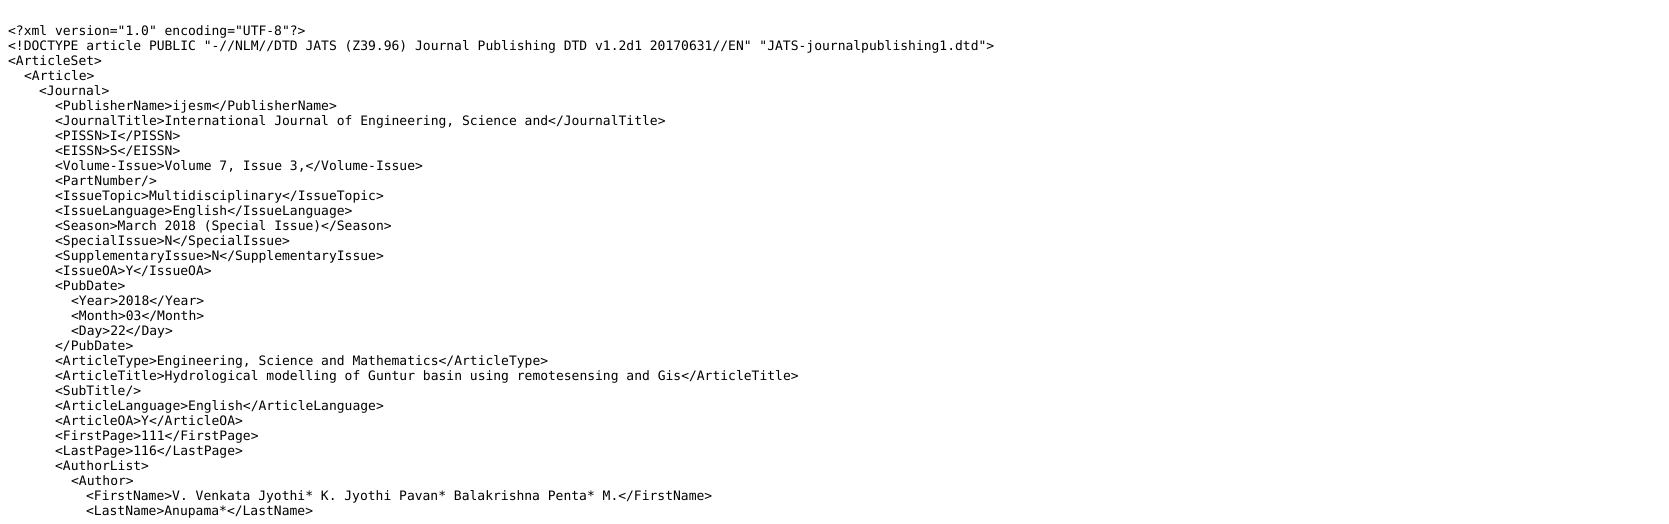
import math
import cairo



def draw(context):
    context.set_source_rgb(1, 1, 1)
    context.paint()
    context.select_font_face("DejaVu Sans Mono")
    context.set_font_size(13)
    context.set_source_rgb(0, 0, 0)
    context.move_to(8, 35)
    context.show_text("<?xml version=\"1.0\" encoding=\"UTF-8\"?>")
    context.move_to(8, 50)
    context.show_text("<!DOCTYPE article PUBLIC \"-//NLM//DTD JATS (Z39.96) Journal Publishing DTD v1.2d1 20170631//EN\" \"JATS-journalpublishing1.dtd\">")
    context.move_to(8, 65)
    context.show_text("<ArticleSet>")
    context.move_to(24, 80)
    context.show_text("<Article>")
    context.move_to(39, 95)
    context.show_text("<Journal>")
    context.move_to(55, 110)
    context.show_text("<PublisherName>ijesm</PublisherName>")
    context.move_to(55, 125)
    context.show_text("<JournalTitle>International Journal of Engineering, Science and</JournalTitle>")
    context.move_to(55, 140)
    context.show_text("<PISSN>I</PISSN>")
    context.move_to(55, 155)
    context.show_text("<EISSN>S</EISSN>")
    context.move_to(55, 170)
    context.show_text("<Volume-Issue>Volume 7, Issue 3,</Volume-Issue>")
    context.move_to(55, 185)
    context.show_text("<PartNumber/>")
    context.move_to(55, 200)
    context.show_text("<IssueTopic>Multidisciplinary</IssueTopic>")
    context.move_to(55, 215)
    context.show_text("<IssueLanguage>English</IssueLanguage>")
    context.move_to(55, 230)
    context.show_text("<Season>March 2018 (Special Issue)</Season>")
    context.move_to(55, 245)
    context.show_text("<SpecialIssue>N</SpecialIssue>")
    context.move_to(55, 260)
    context.show_text("<SupplementaryIssue>N</SupplementaryIssue>")
    context.move_to(55, 275)
    context.show_text("<IssueOA>Y</IssueOA>")
    context.move_to(55, 290)
    context.show_text("<PubDate>")
    context.move_to(71, 305)
    context.show_text("<Year>2018</Year>")
    context.move_to(71, 320)
    context.show_text("<Month>03</Month>")
    context.move_to(71, 335)
    context.show_text("<Day>22</Day>")
    context.move_to(55, 350)
    context.show_text("</PubDate>")
    context.move_to(55, 365)
    context.show_text("<ArticleType>Engineering, Science and Mathematics</ArticleType>")
    context.move_to(55, 380)
    context.show_text("<ArticleTitle>Hydrological modelling of Guntur basin using remotesensing and Gis</ArticleTitle>")
    context.move_to(55, 395)
    context.show_text("<SubTitle/>")
    context.move_to(55, 410)
    context.show_text("<ArticleLanguage>English</ArticleLanguage>")
    context.move_to(55, 425)
    context.show_text("<ArticleOA>Y</ArticleOA>")
    context.move_to(55, 440)
    context.show_text("<FirstPage>111</FirstPage>")
    context.move_to(55, 455)
    context.show_text("<LastPage>116</LastPage>")
    context.move_to(55, 470)
    context.show_text("<AuthorList>")
    context.move_to(71, 485)
    context.show_text("<Author>")
    context.move_to(86, 500)
    context.show_text("<FirstName>V. Venkata Jyothi* K. Jyothi Pavan* Balakrishna Penta* M.</FirstName>")
    context.move_to(86, 515)
    context.show_text("<LastName>Anupama*</LastName>")


surface = cairo.ImageSurface(cairo.Format.RGB24, 1669, 524)
context = cairo.Context(surface)
options = cairo.FontOptions()
options.set_hint_metrics(cairo.HintMetrics.OFF)
options.set_hint_style(cairo.HintStyle.NONE)
context.set_font_options(options)
context.set_miter_limit(4)
draw(context)
surface.write_to_png("out.png")
